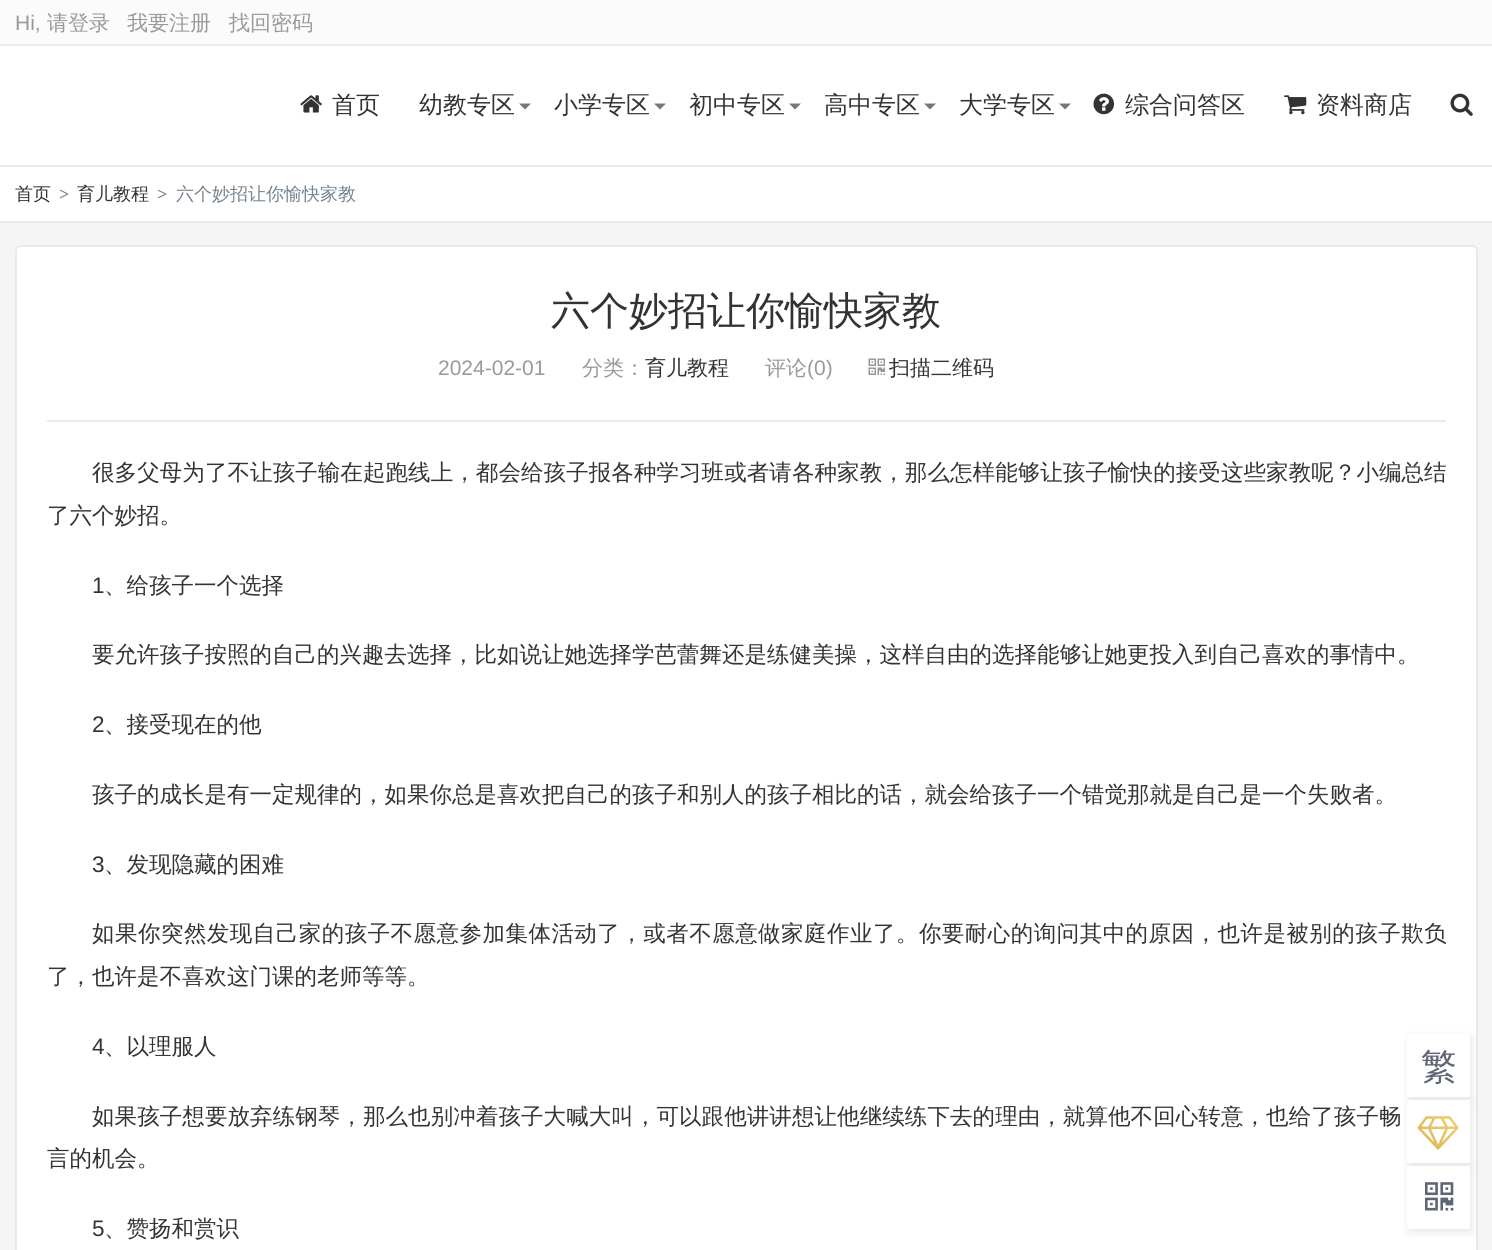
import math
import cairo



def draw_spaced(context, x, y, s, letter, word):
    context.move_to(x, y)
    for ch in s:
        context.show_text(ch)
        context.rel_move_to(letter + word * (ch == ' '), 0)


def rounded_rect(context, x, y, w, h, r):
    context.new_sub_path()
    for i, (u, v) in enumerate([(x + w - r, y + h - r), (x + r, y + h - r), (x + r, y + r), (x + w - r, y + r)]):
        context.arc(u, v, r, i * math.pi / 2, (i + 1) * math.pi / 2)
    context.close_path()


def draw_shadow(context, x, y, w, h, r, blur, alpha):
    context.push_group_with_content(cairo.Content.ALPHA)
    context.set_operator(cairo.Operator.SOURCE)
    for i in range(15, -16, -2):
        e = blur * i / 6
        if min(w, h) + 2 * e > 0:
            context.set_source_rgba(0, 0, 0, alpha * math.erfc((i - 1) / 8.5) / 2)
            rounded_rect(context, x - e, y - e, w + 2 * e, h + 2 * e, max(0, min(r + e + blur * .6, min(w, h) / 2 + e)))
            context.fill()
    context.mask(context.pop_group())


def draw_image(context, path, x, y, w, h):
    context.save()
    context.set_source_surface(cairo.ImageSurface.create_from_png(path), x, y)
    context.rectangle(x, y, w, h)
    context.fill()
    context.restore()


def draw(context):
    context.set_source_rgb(245 / 255, 245 / 255, 245 / 255)
    context.paint()
    context.set_source_rgb(1, 1, 1)
    context.rectangle(0, 46, 1492, 119)
    context.fill()
    context.set_source_rgb(234 / 255, 234 / 255, 234 / 255)
    context.rectangle(0, 165, 1492, 2)
    context.fill()
    context.set_source_rgb(251 / 255, 251 / 255, 251 / 255)
    context.rectangle(0, 0, 1492, 44)
    context.fill()
    context.set_source_rgb(234 / 255, 234 / 255, 234 / 255)
    context.rectangle(0, 44, 1492, 2)
    context.fill()
    draw_image(context, "images/1.png", 300, 95, 22, 18)
    context.set_source_rgb(119 / 255, 119 / 255, 119 / 255)
    context.new_path()
    context.move_to(519, 103.5)
    context.line_to(531, 103.5)
    context.line_to(525, 109.5)
    context.close_path()
    context.fill()
    context.new_path()
    context.move_to(654, 103.5)
    context.line_to(666, 103.5)
    context.line_to(660, 109.5)
    context.close_path()
    context.fill()
    context.new_path()
    context.move_to(789, 103.5)
    context.line_to(801, 103.5)
    context.line_to(795, 109.5)
    context.close_path()
    context.fill()
    context.new_path()
    context.move_to(924, 103.5)
    context.line_to(936, 103.5)
    context.line_to(930, 109.5)
    context.close_path()
    context.fill()
    context.new_path()
    context.move_to(1059, 103.5)
    context.line_to(1071, 103.5)
    context.line_to(1065, 109.5)
    context.close_path()
    context.fill()
    draw_image(context, "images/2.png", 1093, 93, 22, 22)
    draw_image(context, "images/3.png", 1284, 95, 23, 20)
    draw_image(context, "images/4.png", 1450, 93, 23, 23)
    context.set_source_rgb(1, 1, 1)
    context.rectangle(0, 167, 1492, 54)
    context.fill()
    context.set_source_rgb(234 / 255, 234 / 255, 234 / 255)
    context.rectangle(0, 221, 1492, 2)
    context.fill()
    context.set_source_rgb(1, 1, 1)
    rounded_rect(context, 16, 246, 1461, 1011, 5)
    context.fill_preserve()
    context.set_source_rgb(234 / 255, 234 / 255, 234 / 255)
    context.stroke()
    context.rectangle(47, 420, 1399, 2)
    context.fill()
    draw_image(context, "images/5.png", 868, 358, 17, 17)
    context.set_source_rgb(0, 0, 0)
    draw_shadow(context, 1409, 1037, 63, 63, 0, 4, 0.1)
    draw_shadow(context, 1409, 1103, 63, 63, 0, 4, 0.1)
    context.set_source_rgb(1, 1, 1)
    context.rectangle(1407, 1034, 63, 63)
    context.fill()
    context.set_source_rgb(0, 0, 0)
    draw_shadow(context, 1409, 1169, 63, 63, 0, 4, 0.1)
    context.set_source_rgb(1, 1, 1)
    context.rectangle(1407, 1100, 63, 63)
    context.fill()
    draw_image(context, "images/6.png", 1417, 1116, 42, 34)
    context.rectangle(1407, 1166, 63, 63)
    context.fill()
    draw_image(context, "images/7.png", 1425, 1182, 29, 29)
    context.select_font_face("Liberation Sans")
    context.set_font_size(21)
    context.set_source_rgb(153 / 255, 153 / 255, 153 / 255)
    context.move_to(15, 30)
    context.show_text("Hi,")
    context.select_font_face("WenQuanYi Zen Hei Medium")
    context.move_to(47, 30)
    context.show_text("请登录")
    context.move_to(127, 30)
    context.show_text("我要注册")
    context.move_to(229, 30)
    context.show_text("找回密码")
    context.set_font_size(24)
    context.set_source_rgb(51 / 255, 51 / 255, 51 / 255)
    context.move_to(332, 113)
    context.show_text("首页")
    context.move_to(419, 113)
    context.show_text("幼教专区")
    context.move_to(554, 113)
    context.show_text("小学专区")
    context.move_to(689, 113)
    context.show_text("初中专区")
    context.move_to(824, 113)
    context.show_text("高中专区")
    context.move_to(959, 113)
    context.show_text("大学专区")
    context.move_to(1125, 113)
    context.show_text("综合问答区")
    context.move_to(1316, 113)
    context.show_text("资料商店")
    context.set_font_size(18)
    context.move_to(15, 200)
    context.show_text("首页")
    context.select_font_face("Liberation Serif", cairo.FontSlant.NORMAL, cairo.FontWeight.BOLD)
    context.set_source_rgb(118 / 255, 131 / 255, 143 / 255)
    context.move_to(59, 200)
    context.show_text(">")
    context.select_font_face("WenQuanYi Zen Hei Medium")
    context.set_source_rgb(51 / 255, 51 / 255, 51 / 255)
    context.move_to(77, 200)
    context.show_text("育儿教程")
    context.select_font_face("Liberation Serif", cairo.FontSlant.NORMAL, cairo.FontWeight.BOLD)
    context.set_source_rgb(118 / 255, 131 / 255, 143 / 255)
    context.move_to(157, 200)
    context.show_text(">")
    context.select_font_face("WenQuanYi Zen Hei Medium")
    context.move_to(176, 200)
    context.show_text("六个妙招让你愉快家教")
    context.set_font_size(39)
    context.set_source_rgb(51 / 255, 51 / 255, 51 / 255)
    context.move_to(551, 324)
    context.show_text("六个妙招让你愉快家教")
    context.select_font_face("Liberation Sans")
    context.set_font_size(21)
    context.set_source_rgb(153 / 255, 153 / 255, 153 / 255)
    context.move_to(438, 375)
    context.show_text("2024-02-01")
    context.select_font_face("WenQuanYi Zen Hei Medium")
    context.move_to(582, 375)
    context.show_text("分类：")
    context.set_source_rgb(51 / 255, 51 / 255, 51 / 255)
    context.move_to(645, 375)
    context.show_text("育儿教程")
    context.set_source_rgb(153 / 255, 153 / 255, 153 / 255)
    context.move_to(765, 375)
    context.show_text("评论")
    context.select_font_face("Liberation Sans")
    context.move_to(807, 375)
    context.show_text("(0)")
    context.select_font_face("WenQuanYi Zen Hei Medium")
    context.set_source_rgb(51 / 255, 51 / 255, 51 / 255)
    context.move_to(889, 375)
    context.show_text("扫描二维码")
    context.set_font_size(22.5)
    draw_spaced(context, 92, 480, "很多父母为了不让孩子输在起跑线上，都会给孩子报各种学习班或者请各种家教，那么怎样能够让孩子愉快的接受这些家教呢？小编总结", 0.08, 0)
    context.move_to(47, 523)
    context.show_text("了六个妙招。")
    context.select_font_face("Liberation Sans")
    context.move_to(92, 593)
    context.show_text("1")
    context.select_font_face("WenQuanYi Zen Hei Medium")
    context.move_to(104, 593)
    context.show_text("、给孩子一个选择")
    context.move_to(92, 662)
    context.show_text("要允许孩子按照的自己的兴趣去选择，比如说让她选择学芭蕾舞还是练健美操，这样自由的选择能够让她更投入到自己喜欢的事情中。")
    context.select_font_face("Liberation Sans")
    context.move_to(92, 732)
    context.show_text("2")
    context.select_font_face("WenQuanYi Zen Hei Medium")
    context.move_to(104, 732)
    context.show_text("、接受现在的他")
    context.move_to(92, 802)
    context.show_text("孩子的成长是有一定规律的，如果你总是喜欢把自己的孩子和别人的孩子相比的话，就会给孩子一个错觉那就是自己是一个失败者。")
    context.select_font_face("Liberation Sans")
    context.move_to(92, 872)
    context.show_text("3")
    context.select_font_face("WenQuanYi Zen Hei Medium")
    context.move_to(104, 872)
    context.show_text("、发现隐藏的困难")
    draw_spaced(context, 92, 941, "如果你突然发现自己家的孩子不愿意参加集体活动了，或者不愿意做家庭作业了。你要耐心的询问其中的原因，也许是被别的孩子欺负", 0.47, 0)
    context.move_to(47, 984)
    context.show_text("了，也许是不喜欢这门课的老师等等。")
    context.select_font_face("Liberation Sans")
    context.move_to(92, 1054)
    context.show_text("4")
    context.select_font_face("WenQuanYi Zen Hei Medium")
    context.move_to(104, 1054)
    context.show_text("、以理服人")
    draw_spaced(context, 92, 1124, "如果孩子想要放弃练钢琴，那么也别冲着孩子大喊大叫，可以跟他讲讲想让他继续练下去的理由，就算他不回心转意，也给了孩子畅", 0.08, 0)
    context.move_to(47, 1166)
    context.show_text("言的机会。")
    context.select_font_face("Liberation Sans")
    context.move_to(92, 1236)
    context.show_text("5")
    context.select_font_face("WenQuanYi Zen Hei Medium")
    context.move_to(104, 1236)
    context.show_text("、赞扬和赏识")
    context.set_font_size(36)
    context.set_source_rgb(95 / 255, 101 / 255, 117 / 255)
    context.move_to(1421, 1079)
    context.show_text("繁")


surface = cairo.ImageSurface(cairo.Format.RGB24, 1492, 1250)
context = cairo.Context(surface)
options = cairo.FontOptions()
options.set_hint_metrics(cairo.HintMetrics.OFF)
options.set_hint_style(cairo.HintStyle.NONE)
context.set_font_options(options)
context.set_miter_limit(4)
draw(context)
surface.write_to_png("out.png")
